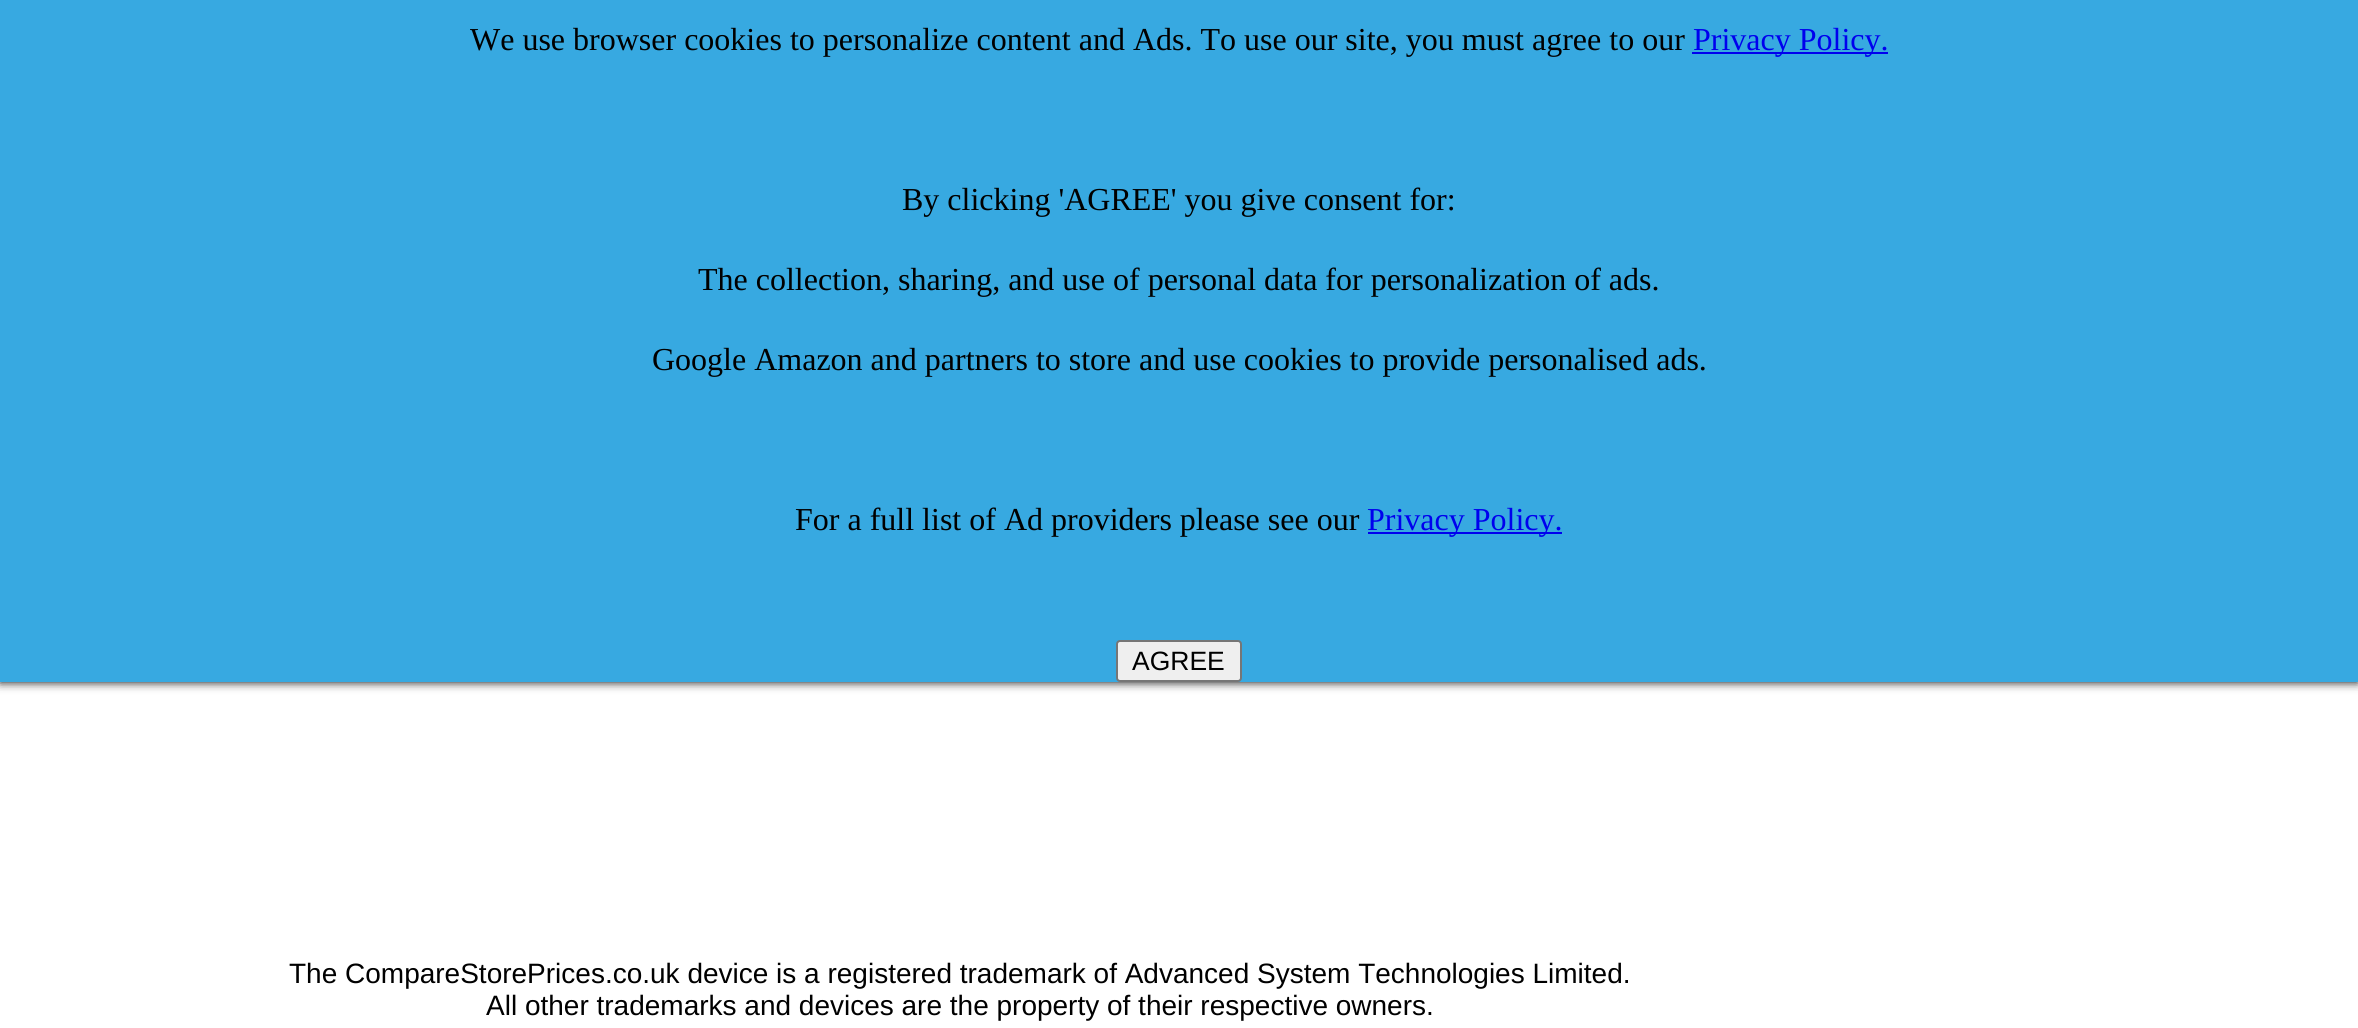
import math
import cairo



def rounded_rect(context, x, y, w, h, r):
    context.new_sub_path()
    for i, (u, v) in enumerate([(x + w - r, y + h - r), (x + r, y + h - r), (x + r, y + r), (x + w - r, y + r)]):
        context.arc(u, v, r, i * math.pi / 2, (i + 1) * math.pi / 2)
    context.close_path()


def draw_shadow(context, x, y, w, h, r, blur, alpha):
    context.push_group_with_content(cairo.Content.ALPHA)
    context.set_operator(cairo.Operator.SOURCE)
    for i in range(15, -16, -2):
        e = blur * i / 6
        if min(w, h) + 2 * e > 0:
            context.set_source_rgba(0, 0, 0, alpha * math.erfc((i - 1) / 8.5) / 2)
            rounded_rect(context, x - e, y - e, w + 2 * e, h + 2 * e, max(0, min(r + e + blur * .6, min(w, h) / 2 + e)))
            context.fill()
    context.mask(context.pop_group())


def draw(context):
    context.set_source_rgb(1, 1, 1)
    context.paint()
    context.set_source_rgb(0, 0, 0)
    draw_shadow(context, 0, 0, 2358, 682, 0, 5, 1)
    context.set_source_rgb(55 / 255, 169 / 255, 225 / 255)
    context.rectangle(0, 0, 2358, 682)
    context.fill()
    context.set_source_rgb(0, 0, 238 / 255)
    context.rectangle(1692, 52, 196, 2)
    context.fill()
    context.rectangle(1368, 532, 194, 2)
    context.fill()
    context.set_source_rgb(239 / 255, 239 / 255, 239 / 255)
    rounded_rect(context, 1117, 641, 124, 40, 3)
    context.fill_preserve()
    context.set_source_rgb(118 / 255, 118 / 255, 118 / 255)
    context.stroke()
    context.select_font_face("Liberation Serif")
    context.set_font_size(32)
    context.set_source_rgb(0, 0, 0)
    context.move_to(470, 50)
    context.show_text("We use browser cookies to personalize content and Ads. To use our site, you must agree to our")
    context.set_source_rgb(0, 0, 238 / 255)
    context.move_to(1693, 50)
    context.show_text("Privacy Policy.")
    context.set_source_rgb(0, 0, 0)
    context.move_to(902, 210)
    context.show_text("By clicking 'AGREE' you give consent for:")
    context.move_to(698, 290)
    context.show_text("The collection, sharing, and use of personal data for personalization of ads.")
    context.move_to(652, 370)
    context.show_text("Google Amazon and partners to store and use cookies to provide personalised ads.")
    context.move_to(795, 530)
    context.show_text("For a full list of Ad providers please see our")
    context.set_source_rgb(0, 0, 238 / 255)
    context.move_to(1367, 530)
    context.show_text("Privacy Policy.")
    context.select_font_face("Liberation Sans")
    context.set_font_size(26.5)
    context.set_source_rgb(0, 0, 0)
    context.move_to(1132, 670)
    context.show_text("AGREE")
    context.set_font_size(28)
    context.move_to(289, 983)
    context.show_text("The CompareStorePrices.co.uk device is a registered trademark of Advanced System Technologies Limited.")
    context.move_to(486, 1015)
    context.show_text("All other trademarks and devices are the property of their respective owners.")


surface = cairo.ImageSurface(cairo.Format.RGB24, 2358, 1028)
context = cairo.Context(surface)
options = cairo.FontOptions()
options.set_hint_metrics(cairo.HintMetrics.OFF)
options.set_hint_style(cairo.HintStyle.NONE)
context.set_font_options(options)
context.set_miter_limit(4)
draw(context)
surface.write_to_png("out.png")
